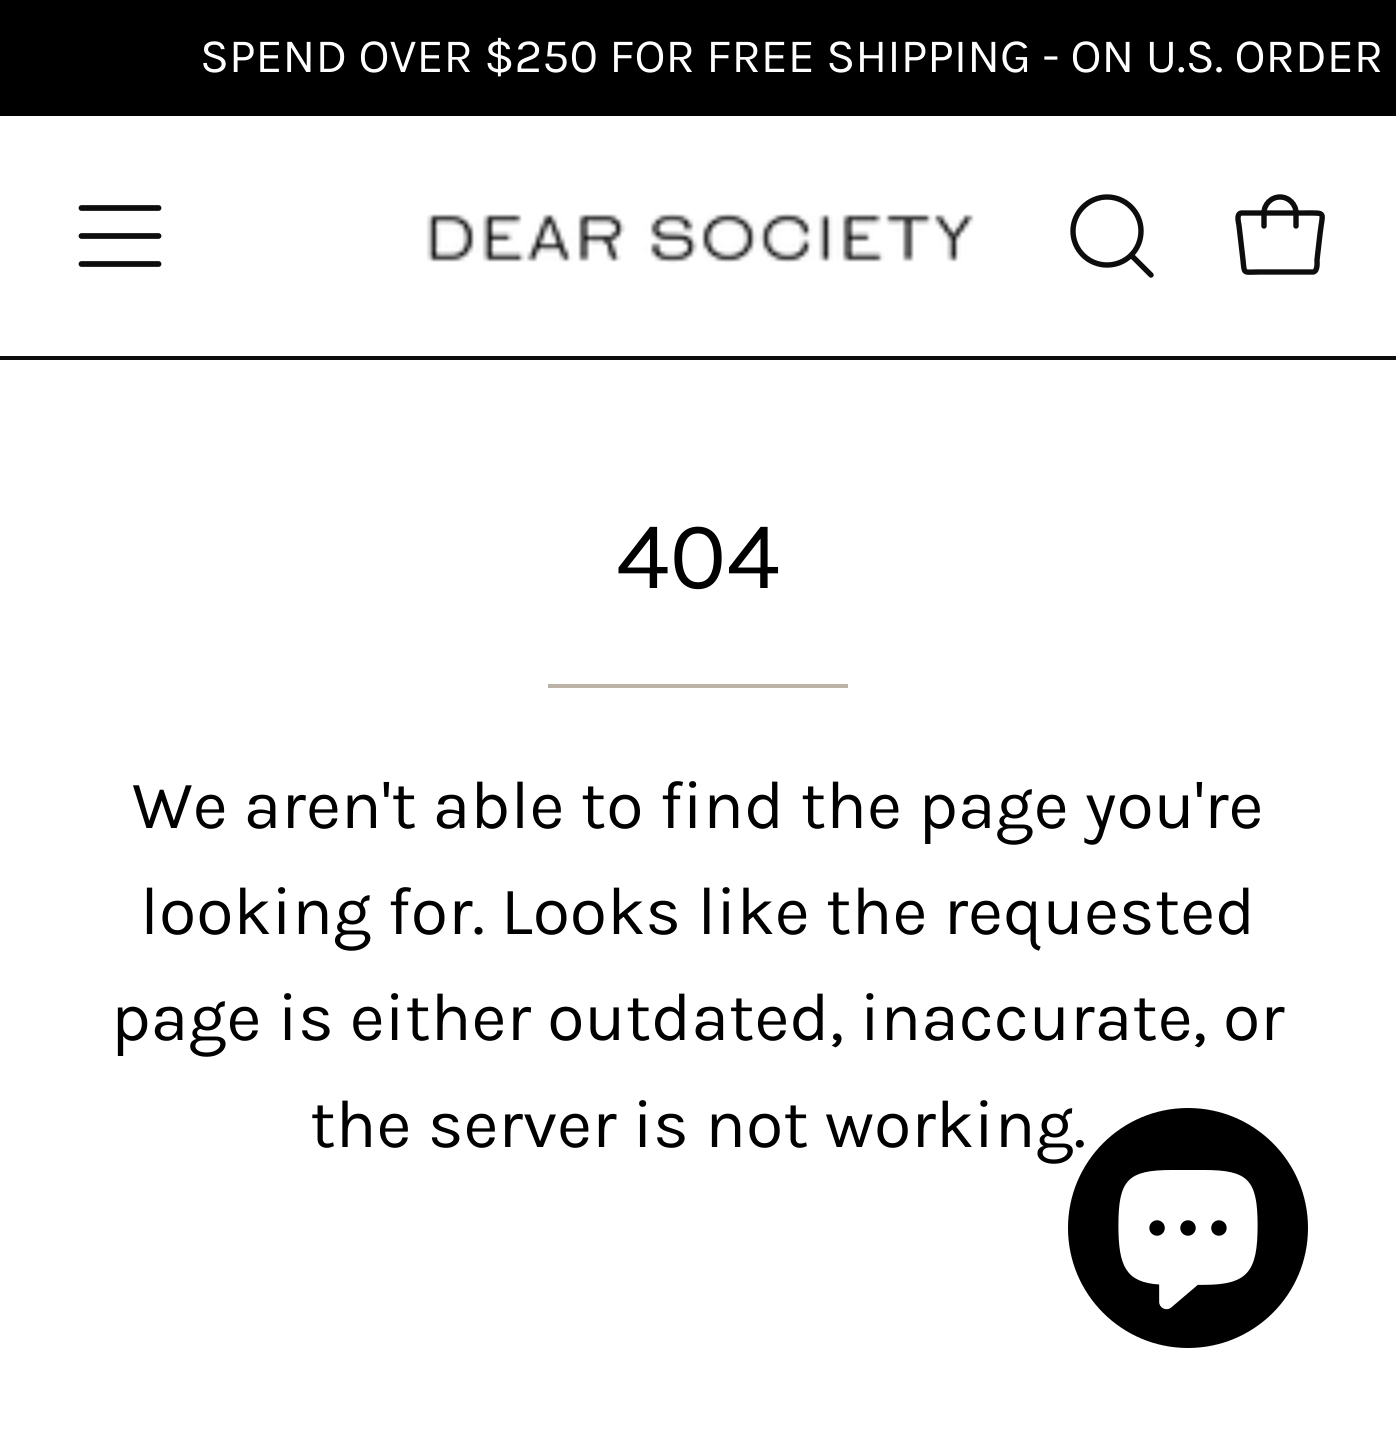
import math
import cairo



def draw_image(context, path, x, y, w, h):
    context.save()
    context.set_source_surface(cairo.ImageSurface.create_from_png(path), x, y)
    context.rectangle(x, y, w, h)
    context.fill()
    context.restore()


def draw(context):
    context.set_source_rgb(1, 1, 1)
    context.paint()
    context.set_source_rgb(0, 0, 0)
    context.rectangle(0, 0, 1396, 116)
    context.fill()
    context.new_path()
    context.move_to(81.5, 236)
    context.line_to(158.5, 236)
    context.move_to(81.5, 208)
    context.line_to(158.5, 208)
    context.move_to(81.5, 264)
    context.line_to(158.5, 264)
    context.set_source_rgb(13 / 255, 13 / 255, 13 / 255)
    context.set_line_width(5.8)
    context.set_line_cap(cairo.LineCap.ROUND)
    context.set_line_join(cairo.LineJoin.ROUND)
    context.stroke()
    draw_image(context, "images/1.png", 426, 212, 548, 52)
    context.new_path()
    context.move_to(1107, 265)
    context.curve_to(1126, 265, 1141, 250, 1141, 231)
    context.curve_to(1141, 212.5, 1126, 197, 1107, 197)
    context.curve_to(1088.5, 197, 1073, 212.5, 1073, 231)
    context.curve_to(1073, 250, 1088.5, 265, 1107, 265)
    context.close_path()
    context.move_to(1131.5, 255.5)
    context.line_to(1151, 275)
    context.set_line_width(5.4)
    context.stroke()
    context.new_path()
    context.move_to(1313, 272)
    context.line_to(1258, 272)
    context.curve_to(1243, 272, 1244.5, 274.5, 1243, 260)
    context.line_to(1239, 225.5)
    context.curve_to(1239, 224, 1235.5, 213.5, 1241.5, 213)
    context.line_to(1306, 213)
    context.curve_to(1327, 213, 1322.5, 211.5, 1320, 234)
    context.line_to(1317, 260)
    context.curve_to(1317, 262, 1318, 271.5, 1313, 272)
    context.close_path()
    context.stroke()
    context.new_path()
    context.move_to(1264, 226)
    context.line_to(1264, 213)
    context.curve_to(1264, 204.5, 1271, 197, 1280, 197)
    context.curve_to(1289, 197, 1296, 204.5, 1296, 213)
    context.line_to(1296, 226)
    context.stroke()
    context.rectangle(0, 356, 1396, 4)
    context.fill()
    context.set_source_rgb(188 / 255, 178 / 255, 168 / 255)
    context.rectangle(548, 684, 300, 4)
    context.fill()
    context.set_source_rgb(0, 0, 0)
    context.arc(1188, 1228, 120, 0, 2 * math.pi)
    context.fill()
    draw_image(context, "images/2.png", 1118, 1170, 140, 140)
    context.select_font_face("Karla")
    context.set_font_size(48)
    context.set_source_rgb(1, 1, 1)
    context.move_to(200, 72)
    context.show_text("SPEND OVER $250 FOR FREE SHIPPING - ON U.S. ORDER")
    context.set_font_size(96)
    context.set_source_rgb(0, 0, 0)
    context.move_to(616, 588)
    context.show_text("404")
    context.set_font_size(68)
    context.move_to(132, 828)
    context.show_text("We aren't able to find the page you're")
    context.move_to(140, 934)
    context.show_text("looking for. Looks like the requested")
    context.move_to(111, 1040)
    context.show_text("page is either outdated, inaccurate, or")
    context.move_to(310, 1147)
    context.show_text("the server is not working.")


surface = cairo.ImageSurface(cairo.Format.RGB24, 1396, 1432)
context = cairo.Context(surface)
options = cairo.FontOptions()
options.set_hint_metrics(cairo.HintMetrics.OFF)
options.set_hint_style(cairo.HintStyle.NONE)
context.set_font_options(options)
context.set_miter_limit(4)
draw(context)
surface.write_to_png("out.png")
